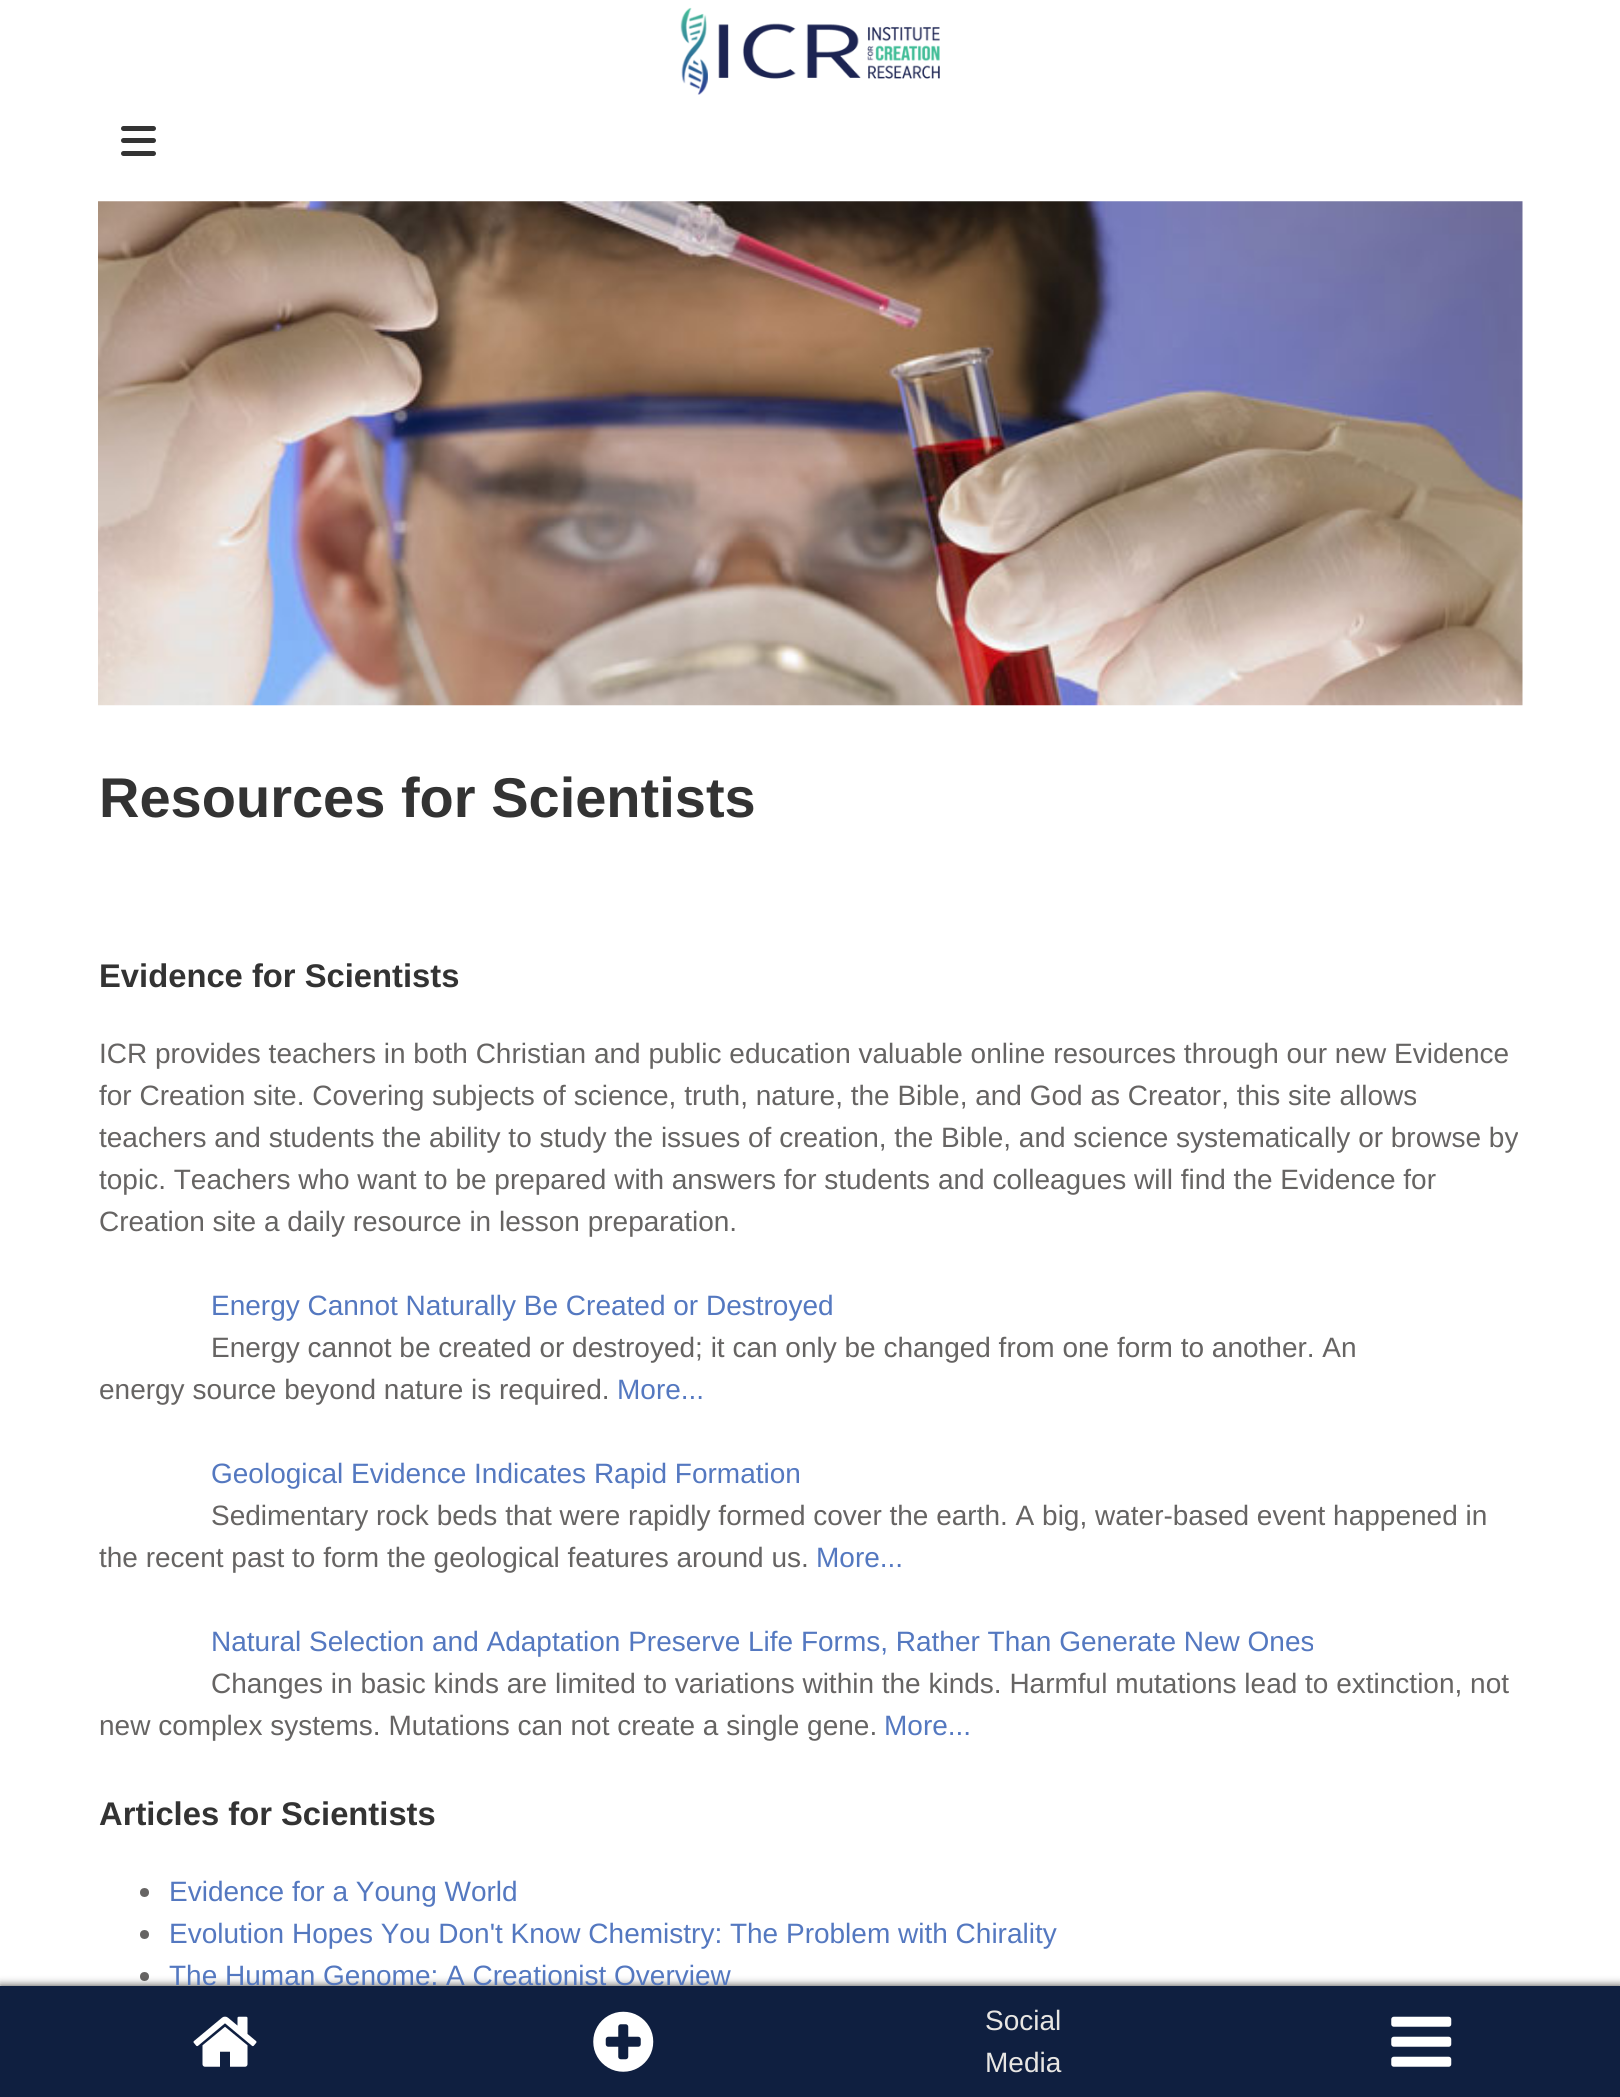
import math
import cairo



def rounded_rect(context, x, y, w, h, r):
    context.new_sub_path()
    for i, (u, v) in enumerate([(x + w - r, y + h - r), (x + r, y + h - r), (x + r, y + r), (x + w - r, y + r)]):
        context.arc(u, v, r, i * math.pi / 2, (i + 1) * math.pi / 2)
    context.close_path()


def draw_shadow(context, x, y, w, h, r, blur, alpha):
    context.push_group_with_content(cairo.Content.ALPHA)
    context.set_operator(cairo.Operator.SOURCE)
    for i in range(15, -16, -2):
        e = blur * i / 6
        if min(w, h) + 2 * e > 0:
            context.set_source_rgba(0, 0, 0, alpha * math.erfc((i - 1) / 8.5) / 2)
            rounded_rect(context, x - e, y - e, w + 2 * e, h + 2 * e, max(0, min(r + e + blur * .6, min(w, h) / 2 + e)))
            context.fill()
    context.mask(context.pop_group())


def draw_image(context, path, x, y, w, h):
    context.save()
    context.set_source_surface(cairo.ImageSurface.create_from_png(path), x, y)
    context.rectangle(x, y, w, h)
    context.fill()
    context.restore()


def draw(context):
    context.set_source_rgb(1, 1, 1)
    context.paint()
    draw_image(context, "images/1.png", 680, 7, 260, 88)
    context.set_source_rgb(51 / 255, 51 / 255, 51 / 255)
    rounded_rect(context, 121, 126, 35, 5, 2.5)
    context.fill()
    rounded_rect(context, 121, 138, 35, 5, 2.5)
    context.fill()
    rounded_rect(context, 121, 151, 35, 5, 2.5)
    context.fill()
    draw_image(context, "images/2.png", 98, 201, 1425, 505)
    context.set_source_rgb(102 / 255, 100 / 255, 99 / 255)
    context.arc(144.5, 1892.5, 4.5, 0, 2 * math.pi)
    context.fill()
    context.arc(144.5, 1934.5, 4.5, 0, 2 * math.pi)
    context.fill()
    context.arc(144.5, 1976.5, 4.5, 0, 2 * math.pi)
    context.fill()
    context.set_source_rgb(0, 0, 0)
    draw_shadow(context, 0, 1986, 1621, 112, 0, 4.5, 0.75)
    context.set_source_rgb(15 / 255, 31 / 255, 64 / 255)
    context.rectangle(0, 1986, 1620, 111)
    context.fill()
    draw_image(context, "images/3.png", 193, 2016, 64, 51)
    draw_image(context, "images/4.png", 593, 2011, 61, 61)
    draw_image(context, "images/5.png", 1391, 2016, 61, 51)
    context.select_font_face("Liberation Sans", cairo.FontSlant.NORMAL, cairo.FontWeight.BOLD)
    context.set_font_size(56)
    context.set_source_rgb(51 / 255, 51 / 255, 51 / 255)
    context.move_to(99, 817)
    context.show_text("Resources for Scientists")
    context.set_font_size(32.75)
    context.move_to(99, 987)
    context.show_text("Evidence for Scientists")
    context.select_font_face("Liberation Sans")
    context.set_font_size(28)
    context.set_source_rgb(102 / 255, 100 / 255, 99 / 255)
    context.move_to(99, 1063)
    context.show_text("ICR provides teachers in both Christian and public education valuable online resources through our new Evidence")
    context.move_to(99, 1105)
    context.show_text("for Creation site. Covering subjects of science, truth, nature, the Bible, and God as Creator, this site allows")
    context.move_to(99, 1147)
    context.show_text("teachers and students the ability to study the issues of creation, the Bible, and science systematically or browse by")
    context.move_to(99, 1189)
    context.show_text("topic. Teachers who want to be prepared with answers for students and colleagues will find the Evidence for")
    context.move_to(99, 1231)
    context.show_text("Creation site a daily resource in lesson preparation.")
    context.set_source_rgb(84 / 255, 120 / 255, 192 / 255)
    context.move_to(211, 1315)
    context.show_text("Energy Cannot Naturally Be Created or Destroyed")
    context.set_source_rgb(102 / 255, 100 / 255, 99 / 255)
    context.move_to(211, 1357)
    context.show_text("Energy cannot be created or destroyed; it can only be changed from one form to another. An")
    context.move_to(99, 1399)
    context.show_text("energy source beyond nature is required.")
    context.set_source_rgb(84 / 255, 120 / 255, 192 / 255)
    context.move_to(617, 1399)
    context.show_text("More...")
    context.move_to(211, 1483)
    context.show_text("Geological Evidence Indicates Rapid Formation")
    context.set_source_rgb(102 / 255, 100 / 255, 99 / 255)
    context.move_to(211, 1525)
    context.show_text("Sedimentary rock beds that were rapidly formed cover the earth. A big, water-based event happened in")
    context.move_to(99, 1567)
    context.show_text("the recent past to form the geological features around us.")
    context.set_source_rgb(84 / 255, 120 / 255, 192 / 255)
    context.move_to(816, 1567)
    context.show_text("More...")
    context.move_to(211, 1651)
    context.show_text("Natural Selection and Adaptation Preserve Life Forms, Rather Than Generate New Ones")
    context.set_source_rgb(102 / 255, 100 / 255, 99 / 255)
    context.move_to(211, 1693)
    context.show_text("Changes in basic kinds are limited to variations within the kinds. Harmful mutations lead to extinction, not")
    context.move_to(99, 1735)
    context.show_text("new complex systems. Mutations can not create a single gene.")
    context.set_source_rgb(84 / 255, 120 / 255, 192 / 255)
    context.move_to(884, 1735)
    context.show_text("More...")
    context.select_font_face("Liberation Sans", cairo.FontSlant.NORMAL, cairo.FontWeight.BOLD)
    context.set_font_size(32.75)
    context.set_source_rgb(51 / 255, 51 / 255, 51 / 255)
    context.move_to(99, 1825)
    context.show_text("Articles for Scientists")
    context.select_font_face("Liberation Sans")
    context.set_font_size(28)
    context.set_source_rgb(84 / 255, 120 / 255, 192 / 255)
    context.move_to(169, 1901)
    context.show_text("Evidence for a Young World")
    context.move_to(169, 1943)
    context.show_text("Evolution Hopes You Don't Know Chemistry: The Problem with Chirality")
    context.move_to(169, 1985)
    context.show_text("The Human Genome: A Creationist Overview")
    context.set_source_rgb(232 / 255, 230 / 255, 227 / 255)
    context.move_to(985, 2030)
    context.show_text("Social")
    context.move_to(985, 2072)
    context.show_text("Media")


surface = cairo.ImageSurface(cairo.Format.RGB24, 1620, 2097)
context = cairo.Context(surface)
options = cairo.FontOptions()
options.set_hint_metrics(cairo.HintMetrics.OFF)
options.set_hint_style(cairo.HintStyle.NONE)
context.set_font_options(options)
context.set_miter_limit(4)
draw(context)
surface.write_to_png("out.png")
